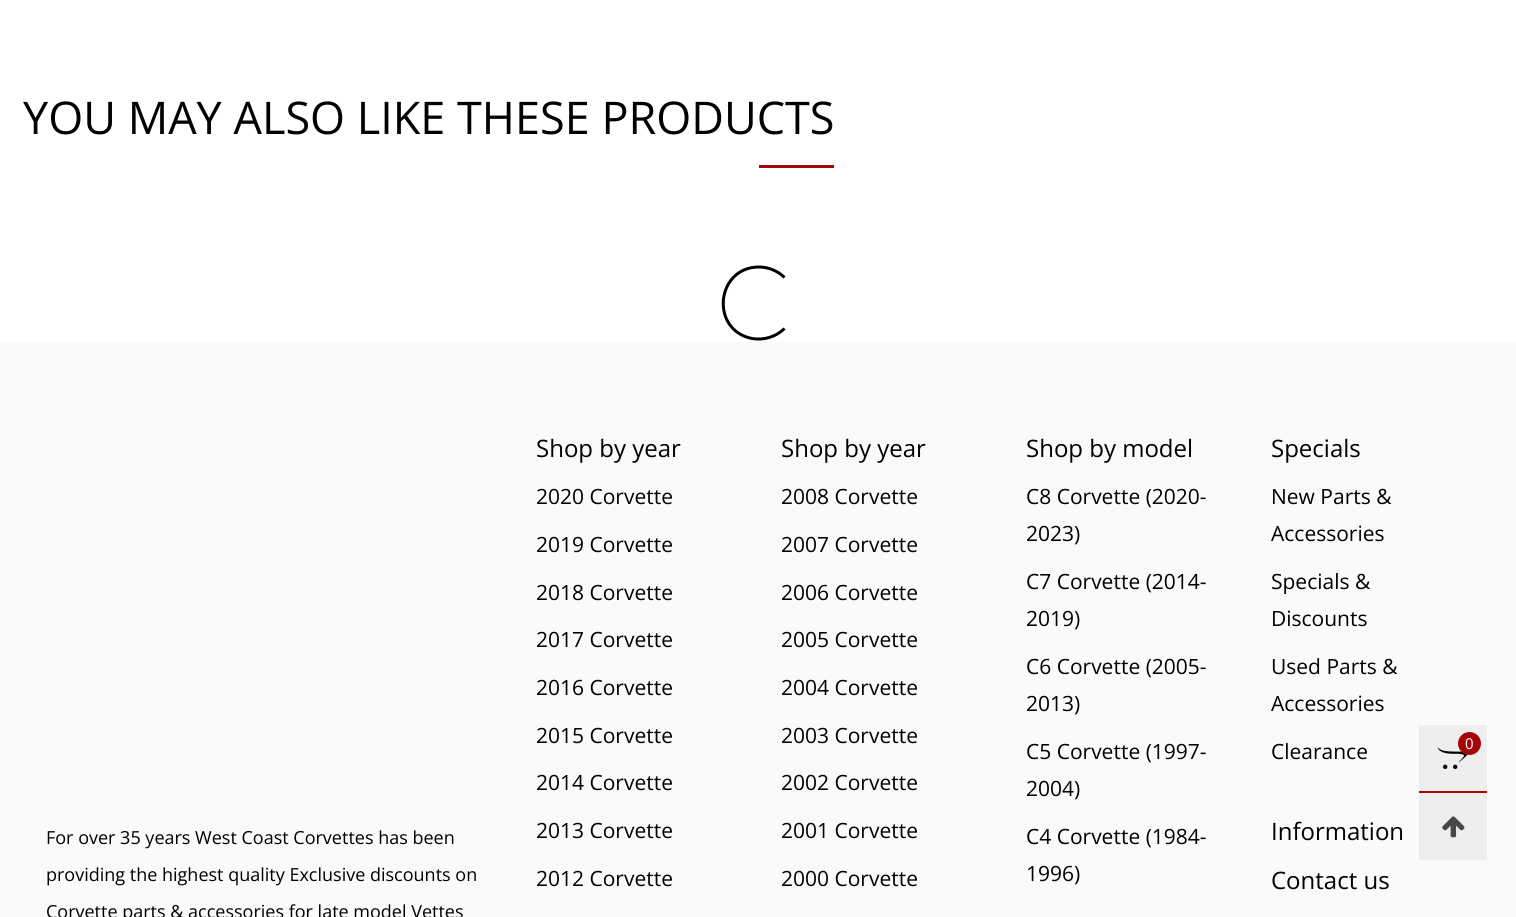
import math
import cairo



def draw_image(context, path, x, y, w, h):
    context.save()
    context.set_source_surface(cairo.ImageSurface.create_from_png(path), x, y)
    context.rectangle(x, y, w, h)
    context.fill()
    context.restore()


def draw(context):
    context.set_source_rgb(1, 1, 1)
    context.paint()
    context.set_source_rgb(166 / 255, 6 / 255, 6 / 255)
    context.rectangle(759, 165, 75, 3)
    context.fill()
    context.new_path()
    context.move_to(784.5, 328.5)
    context.curve_to(776, 337, 763.5, 340.5, 752, 338.5)
    context.curve_to(709.5, 330, 716, 267, 759, 267)
    context.curve_to(768.5, 267, 778, 271, 784.5, 277.5)
    context.set_source_rgb(0, 0, 0)
    context.set_line_width(3)
    context.stroke()
    context.set_source_rgb(250 / 255, 250 / 255, 250 / 255)
    context.rectangle(0, 342, 1516, 575)
    context.fill()
    context.set_source_rgb(238 / 255, 238 / 255, 238 / 255)
    context.rectangle(1419, 725, 68, 135)
    context.fill()
    context.set_source_rgb(166 / 255, 6 / 255, 6 / 255)
    context.rectangle(1419, 791, 68, 2)
    context.fill()
    draw_image(context, "images/1.png", 1437, 747, 31, 22)
    context.arc(1469.5, 743.5, 11.5, 0, 2 * math.pi)
    context.fill()
    draw_image(context, "images/2.png", 1442, 816, 23, 22)
    context.select_font_face("Open Sans")
    context.set_font_size(45)
    context.set_source_rgb(0, 0, 0)
    context.move_to(23, 134)
    context.show_text("YOU MAY ALSO LIKE THESE PRODUCTS")
    context.set_font_size(18)
    context.move_to(46, 844)
    context.show_text("For over 35 years West Coast Corvettes has been")
    context.move_to(46, 881)
    context.show_text("providing the highest quality Exclusive discounts on")
    context.move_to(46, 918)
    context.show_text("Corvette parts & accessories for late model Vettes")
    context.set_font_size(24)
    context.move_to(536, 457)
    context.show_text("Shop by year")
    context.set_font_size(21)
    context.move_to(536, 504)
    context.show_text("2020 Corvette")
    context.move_to(536, 552)
    context.show_text("2019 Corvette")
    context.move_to(536, 600)
    context.show_text("2018 Corvette")
    context.move_to(536, 647)
    context.show_text("2017 Corvette")
    context.move_to(536, 695)
    context.show_text("2016 Corvette")
    context.move_to(536, 743)
    context.show_text("2015 Corvette")
    context.move_to(536, 790)
    context.show_text("2014 Corvette")
    context.move_to(536, 838)
    context.show_text("2013 Corvette")
    context.move_to(536, 886)
    context.show_text("2012 Corvette")
    context.set_font_size(24)
    context.move_to(781, 457)
    context.show_text("Shop by year")
    context.set_font_size(21)
    context.move_to(781, 504)
    context.show_text("2008 Corvette")
    context.move_to(781, 552)
    context.show_text("2007 Corvette")
    context.move_to(781, 600)
    context.show_text("2006 Corvette")
    context.move_to(781, 647)
    context.show_text("2005 Corvette")
    context.move_to(781, 695)
    context.show_text("2004 Corvette")
    context.move_to(781, 743)
    context.show_text("2003 Corvette")
    context.move_to(781, 790)
    context.show_text("2002 Corvette")
    context.move_to(781, 838)
    context.show_text("2001 Corvette")
    context.move_to(781, 886)
    context.show_text("2000 Corvette")
    context.set_font_size(24)
    context.move_to(1026, 457)
    context.show_text("Shop by model")
    context.set_font_size(21)
    context.move_to(1026, 504)
    context.show_text("C8 Corvette (2020-")
    context.move_to(1026, 541)
    context.show_text("2023)")
    context.move_to(1026, 589)
    context.show_text("C7 Corvette (2014-")
    context.move_to(1026, 626)
    context.show_text("2019)")
    context.move_to(1026, 674)
    context.show_text("C6 Corvette (2005-")
    context.move_to(1026, 711)
    context.show_text("2013)")
    context.move_to(1026, 759)
    context.show_text("C5 Corvette (1997-")
    context.move_to(1026, 796)
    context.show_text("2004)")
    context.move_to(1026, 844)
    context.show_text("C4 Corvette (1984-")
    context.move_to(1026, 881)
    context.show_text("1996)")
    context.set_font_size(24)
    context.move_to(1271, 457)
    context.show_text("Specials")
    context.set_font_size(21)
    context.move_to(1271, 504)
    context.show_text("New Parts &")
    context.move_to(1271, 541)
    context.show_text("Accessories")
    context.move_to(1271, 589)
    context.show_text("Specials &")
    context.move_to(1271, 626)
    context.show_text("Discounts")
    context.move_to(1271, 674)
    context.show_text("Used Parts &")
    context.move_to(1271, 711)
    context.show_text("Accessories")
    context.move_to(1271, 759)
    context.show_text("Clearance")
    context.set_font_size(24)
    context.move_to(1271, 840)
    context.show_text("Information")
    context.move_to(1271, 889)
    context.show_text("Contact us")
    context.set_font_size(15)
    context.set_source_rgb(1, 1, 1)
    context.move_to(1465, 749)
    context.show_text("0")


surface = cairo.ImageSurface(cairo.Format.RGB24, 1516, 917)
context = cairo.Context(surface)
options = cairo.FontOptions()
options.set_hint_metrics(cairo.HintMetrics.OFF)
options.set_hint_style(cairo.HintStyle.NONE)
context.set_font_options(options)
context.set_miter_limit(4)
draw(context)
surface.write_to_png("out.png")
